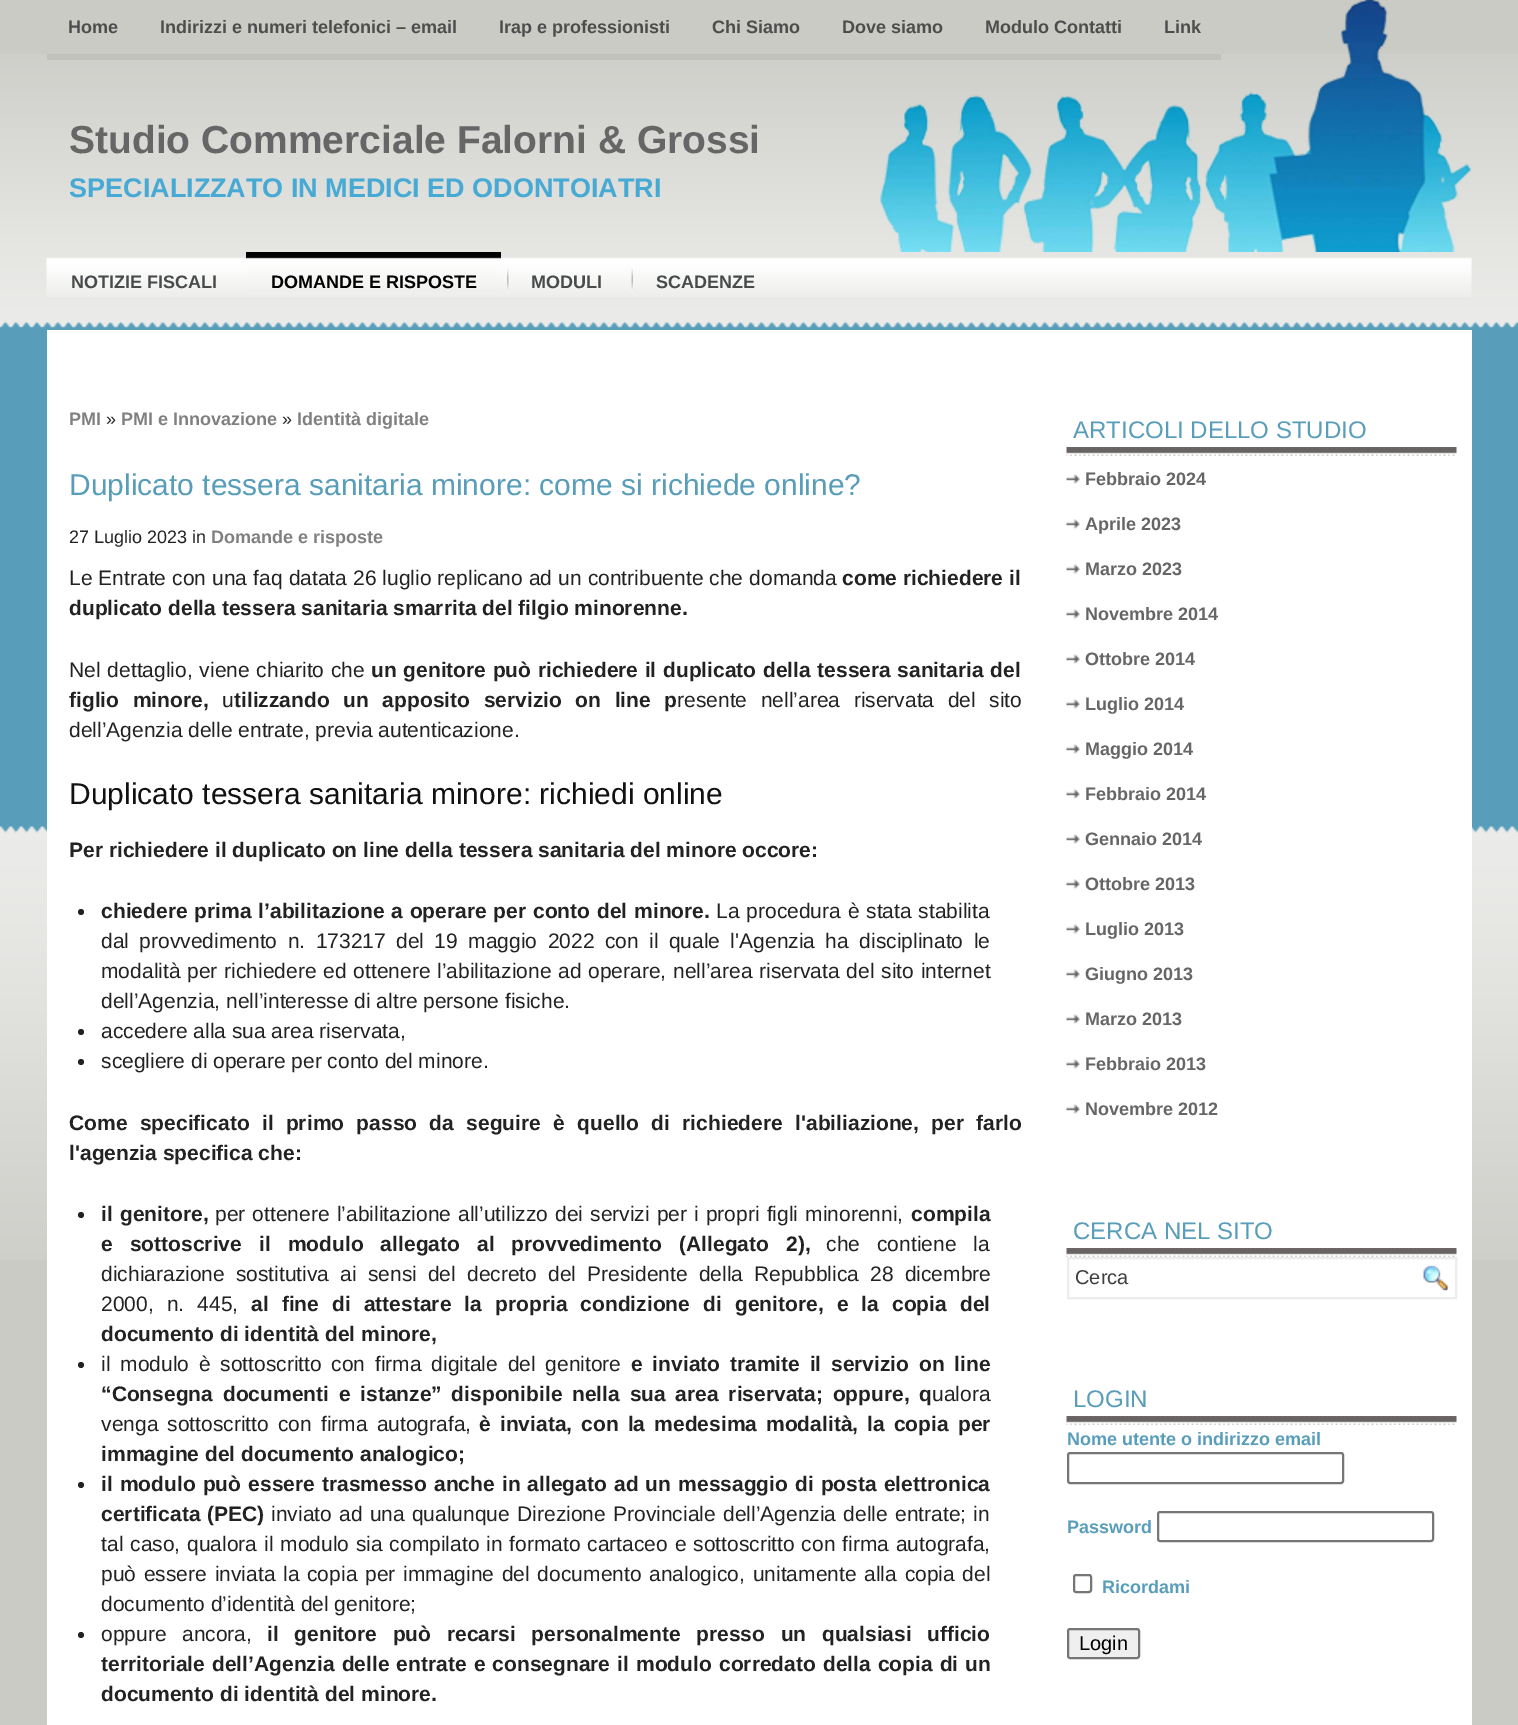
%!PS-Adobe-3.0
%%BoundingBox: 0 0 1518 1725
%%LanguageLevel: 3
%%Pages: 1
%%EndComments
%%BeginProlog
/m { moveto } bind def
/f { fill } bind def
/S { stroke } bind def
/q { gsave } bind def
/Q { grestore } bind def
/w { setlinewidth } bind def
/fn { [ exch dup neg 0 0 3 -1 roll 0 0 ] selectfont } def
/tx { moveto show } def
/bx { rectfill } def
/ci { newpath 0 360 arc closepath } def
/rr { 5 dict begin { /r /h /w /y /x } { exch def } forall
  x r add y moveto x w add y 2 copy h add r arct x w add y h add x 1 index r arct
  x y h add x y r arct x y 2 copy exch w add exch r arct closepath end } def
/im { 5 dict begin { /h /w /y /x /name } { exch def } forall
  gsave x y translate w h scale
  w h 8 [w 0 0 h 0 0] name (r) file false 3 colorimage grestore end } def
%%EndProlog
%%BeginSetup
<< /PageSize [1518 1725] >> setpagedevice
%%EndSetup
%%Page: 1 1
0 1725 translate 1 -1 scale
4 setmiterlimit
0.792 0.796 0.773 setrgbcolor
0 0 1518 1725 bx
(image0.raw) 0 54 1518 1206 im
(image1.raw) 880 0 592 252 im
0.757 0.761 0.733 setrgbcolor
47 54 1174 6 bx
/LiberationSans-Bold 18 fn
0.306 0.302 0.302 setrgbcolor
(Home) 68 33 tx
(Indirizzi e numeri telefonici – email) 160 33 tx
(Irap e professionisti) 499 33 tx
(Chi Siamo) 712 33 tx
(Dove siamo) 842 33 tx
(Modulo Contatti) 985 33 tx
(Link) 1164 33 tx
/LiberationSans-Bold 39 fn
0.4 setgray
(Studio Commerciale Falorni & Grossi) 69 153 tx
/LiberationSans-Bold 27 fn
0.278 0.667 0.831 setrgbcolor
(SPECIALIZZATO IN MEDICI ED ODONTOIATRI) 69 197 tx
(image2.raw) 46 257 1426 40 im
/LiberationSans-Bold 18 fn
0.282 0.294 0.298 setrgbcolor
(NOTIZIE FISCALI) 71 288 tx
(image3.raw) 246 252 255 41 im
0 setgray
(DOMANDE E RISPOSTE) 271 288 tx
(image4.raw) 507 268 2 25 im
0.282 0.294 0.298 setrgbcolor
(MODULI) 531 288 tx
(image5.raw) 631 268 2 25 im
(SCADENZE) 656 288 tx
1 setgray
47 330 1425 1395 bx
0.502 setgray
(PMI) 69 425 tx
/LiberationSans-Regular 18 fn
0.133 setgray
(») 106 425 tx
/LiberationSans-Bold 18 fn
0.502 setgray
(PMI e Innovazione) 121 425 tx
/LiberationSans-Regular 18 fn
0.133 setgray
(») 282 425 tx
/LiberationSans-Bold 18 fn
0.502 setgray
(Identità digitale) 297 425 tx
/LiberationSans-Regular 30 fn
0.345 0.616 0.729 setrgbcolor
(Duplicato tessera sanitaria minore: come si richiede online?) 69 495 tx
/LiberationSans-Regular 18 fn
0.133 setgray
(27 Luglio 2023 in) 69 543 tx
/LiberationSans-Bold 18 fn
0.502 setgray
(Domande e risposte) 211 543 tx
/LiberationSans-Regular 21 fn
0.133 setgray
69 585 m 0.25 0 32 (Le Entrate con una faq datata 26 luglio replicano ad un contribuente che domanda) widthshow
/LiberationSans-Bold 21 fn
(come richiedere il) 842 585 tx
(duplicato della tessera sanitaria smarrita del filgio minorenne.) 69 615 tx
/LiberationSans-Regular 21 fn
69 677 m 1 0 32 (Nel dettaglio, viene chiarito che) widthshow
/LiberationSans-Bold 21 fn
371 677 m 0.75 0 32 (un genitore può richiedere il duplicato della tessera sanitaria del) widthshow
69 707 m 7.75 0 32 (figlio minore,) widthshow
/LiberationSans-Regular 21 fn
(u) 222 707 tx
/LiberationSans-Bold 21 fn
234 707 m 7.75 0 32 (tilizzando un apposito servizio on line p) widthshow
/LiberationSans-Regular 21 fn
677 707 m 7.75 0 32 (resente nell’area riservata del sito) widthshow
(dell’Agenzia delle entrate, previa autenticazione.) 69 737 tx
/LiberationSans-Regular 30 fn
0.067 setgray
(Duplicato tessera sanitaria minore: richiedi online) 69 804 tx
/LiberationSans-Bold 21 fn
0.133 setgray
(Per richiedere il duplicato on line della tessera sanitaria del minore occore:) 69 857 tx
81 912 3 ci f
101 918 m 1 0 32 (chiedere prima l’abilitazione a operare per conto del minore.) widthshow
/LiberationSans-Regular 21 fn
716 918 m 1 0 32 (La procedura è stata stabilita) widthshow
101 948 m 4.6 0 32 (dal provvedimento n. 173217 del 19 maggio 2022 con il quale l'Agenzia ha disciplinato le) widthshow
101 978 m 0.9 0 32 (modalità per richiedere ed ottenere l’abilitazione ad operare, nell’area riservata del sito internet) widthshow
(dell’Agenzia, nell’interesse di altre persone fisiche.) 101 1008 tx
81 1032 3 ci f
(accedere alla sua area riservata,) 101 1038 tx
81 1062 3 ci f
(scegliere di operare per conto del minore.) 101 1068 tx
/LiberationSans-Bold 21 fn
69 1130 m 6.5 0 32 (Come specificato il primo passo da seguire è quello di richiedere l'abiliazione, per farlo) widthshow
(l'agenzia specifica che:) 69 1160 tx
81 1215 3 ci f
101 1221 m 1.25 0 32 (il genitore,) widthshow
/LiberationSans-Regular 21 fn
215 1221 m 1.25 0 32 (per ottenere l’abilitazione all’utilizzo dei servizi per i propri figli minorenni,) widthshow
/LiberationSans-Bold 21 fn
(compila) 911 1221 tx
101 1251 m 11.25 0 32 (e sottoscrive il modulo allegato al provvedimento \(Allegato 2\),) widthshow
/LiberationSans-Regular 21 fn
826 1251 m 11.25 0 32 (che contiene la) widthshow
101 1281 m 5.25 0 32 (dichiarazione sostitutiva ai sensi del decreto del Presidente della Repubblica 28 dicembre) widthshow
101 1311 m 7.25 0 32 (2000, n. 445,) widthshow
/LiberationSans-Bold 21 fn
251 1311 m 7.25 0 32 (al fine di attestare la propria condizione di genitore, e la copia del) widthshow
(documento di identità del minore,) 101 1341 tx
81 1365 3 ci f
/LiberationSans-Regular 21 fn
101 1371 m 3.9 0 32 (il modulo è sottoscritto con firma digitale del genitore) widthshow
/LiberationSans-Bold 21 fn
631 1371 m 3.9 0 32 (e inviato tramite il servizio on line) widthshow
101 1401 m 3.9 0 32 (“Consegna documenti e istanze” disponibile nella sua area riservata; oppure, q) widthshow
/LiberationSans-Regular 21 fn
(ualora) 932 1401 tx
101 1431 m 3.25 0 32 (venga sottoscritto con firma autografa,) widthshow
/LiberationSans-Bold 21 fn
479 1431 m 3.25 0 32 (è inviata, con la medesima modalità, la copia per) widthshow
(immagine del documento analogico;) 101 1461 tx
81 1485 3 ci f
101 1491 m 1.25 0 32 (il modulo può essere trasmesso anche in allegato ad un messaggio di posta elettronica) widthshow
101 1521 m 1 0 32 (certificata \(PEC\)) widthshow
/LiberationSans-Regular 21 fn
271 1521 m 1.4 0 32 (inviato ad una qualunque Direzione Provinciale dell’Agenzia delle entrate; in) widthshow
101 1551 m 1 0 32 (tal caso, qualora il modulo sia compilato in formato cartaceo e sottoscritto con firma autografa,) widthshow
101 1581 m 1.9 0 32 (può essere inviata la copia per immagine del documento analogico, unitamente alla copia del) widthshow
(documento d’identità del genitore;) 101 1611 tx
81 1635 3 ci f
101 1641 m 9.75 0 32 (oppure ancora,) widthshow
/LiberationSans-Bold 21 fn
267 1641 m 9.75 0 32 (il genitore può recarsi personalmente presso un qualsiasi ufficio) widthshow
101 1671 m 1.25 0 32 (territoriale dell’Agenzia delle entrate e consegnare il modulo corredato della copia di un) widthshow
(documento di identità del minore.) 101 1701 tx
(image6.raw) 1066 447 391 9 im
/LiberationSans-Regular 24 fn
0.345 0.616 0.729 setrgbcolor
(ARTICOLI DELLO STUDIO) 1073 438 tx
(image7.raw) 1066 474 14 11 im
/LiberationSans-Bold 18 fn
0.4 setgray
(Febbraio 2024) 1085 485 tx
(image7.raw) 1066 519 14 11 im
(Aprile 2023) 1085 530 tx
(image7.raw) 1066 564 14 11 im
(Marzo 2023) 1085 575 tx
(image7.raw) 1066 609 14 11 im
(Novembre 2014) 1085 620 tx
(image7.raw) 1066 654 14 11 im
(Ottobre 2014) 1085 665 tx
(image7.raw) 1066 699 14 11 im
(Luglio 2014) 1085 710 tx
(image7.raw) 1066 744 14 11 im
(Maggio 2014) 1085 755 tx
(image7.raw) 1066 789 14 11 im
(Febbraio 2014) 1085 800 tx
(image7.raw) 1066 834 14 11 im
(Gennaio 2014) 1085 845 tx
(image7.raw) 1066 879 14 11 im
(Ottobre 2013) 1085 890 tx
(image7.raw) 1066 924 14 11 im
(Luglio 2013) 1085 935 tx
(image7.raw) 1066 969 14 11 im
(Giugno 2013) 1085 980 tx
(image7.raw) 1066 1014 14 11 im
(Marzo 2013) 1085 1025 tx
(image7.raw) 1066 1059 14 11 im
(Febbraio 2013) 1085 1070 tx
(image7.raw) 1066 1104 14 11 im
(Novembre 2012) 1085 1115 tx
(image8.raw) 1066 1248 391 9 im
/LiberationSans-Regular 24 fn
0.345 0.616 0.729 setrgbcolor
(CERCA NEL SITO) 1073 1239 tx
0.929 0.925 0.925 setrgbcolor
2 w
1068 1258 388 40 rectstroke
/LiberationSans-Regular 20 fn
0.247 setgray
(Cerca) 1075 1284 tx
(image9.raw) 1423 1265 25 26 im
(image10.raw) 1066 1416 391 9 im
/LiberationSans-Regular 24 fn
0.345 0.616 0.729 setrgbcolor
(LOGIN) 1073 1407 tx
/LiberationSans-Bold 18 fn
(Nome utente o indirizzo email) 1067 1445 tx
0.463 setgray
1068 1453 275 30 2 rr S
0.345 0.616 0.729 setrgbcolor
(Password) 1067 1533 tx
0.463 setgray
1158 1512 275 29 2 rr S
1074 1575 17 17 2 rr S
0.345 0.616 0.729 setrgbcolor
(Ricordami) 1102 1593 tx
0.937 setgray
1068 1629 71 29 2 rr q f Q
0.463 setgray
S
/LiberationSans-Regular 20 fn
0 setgray
(Login) 1079 1650 tx
showpage
%%EOF
